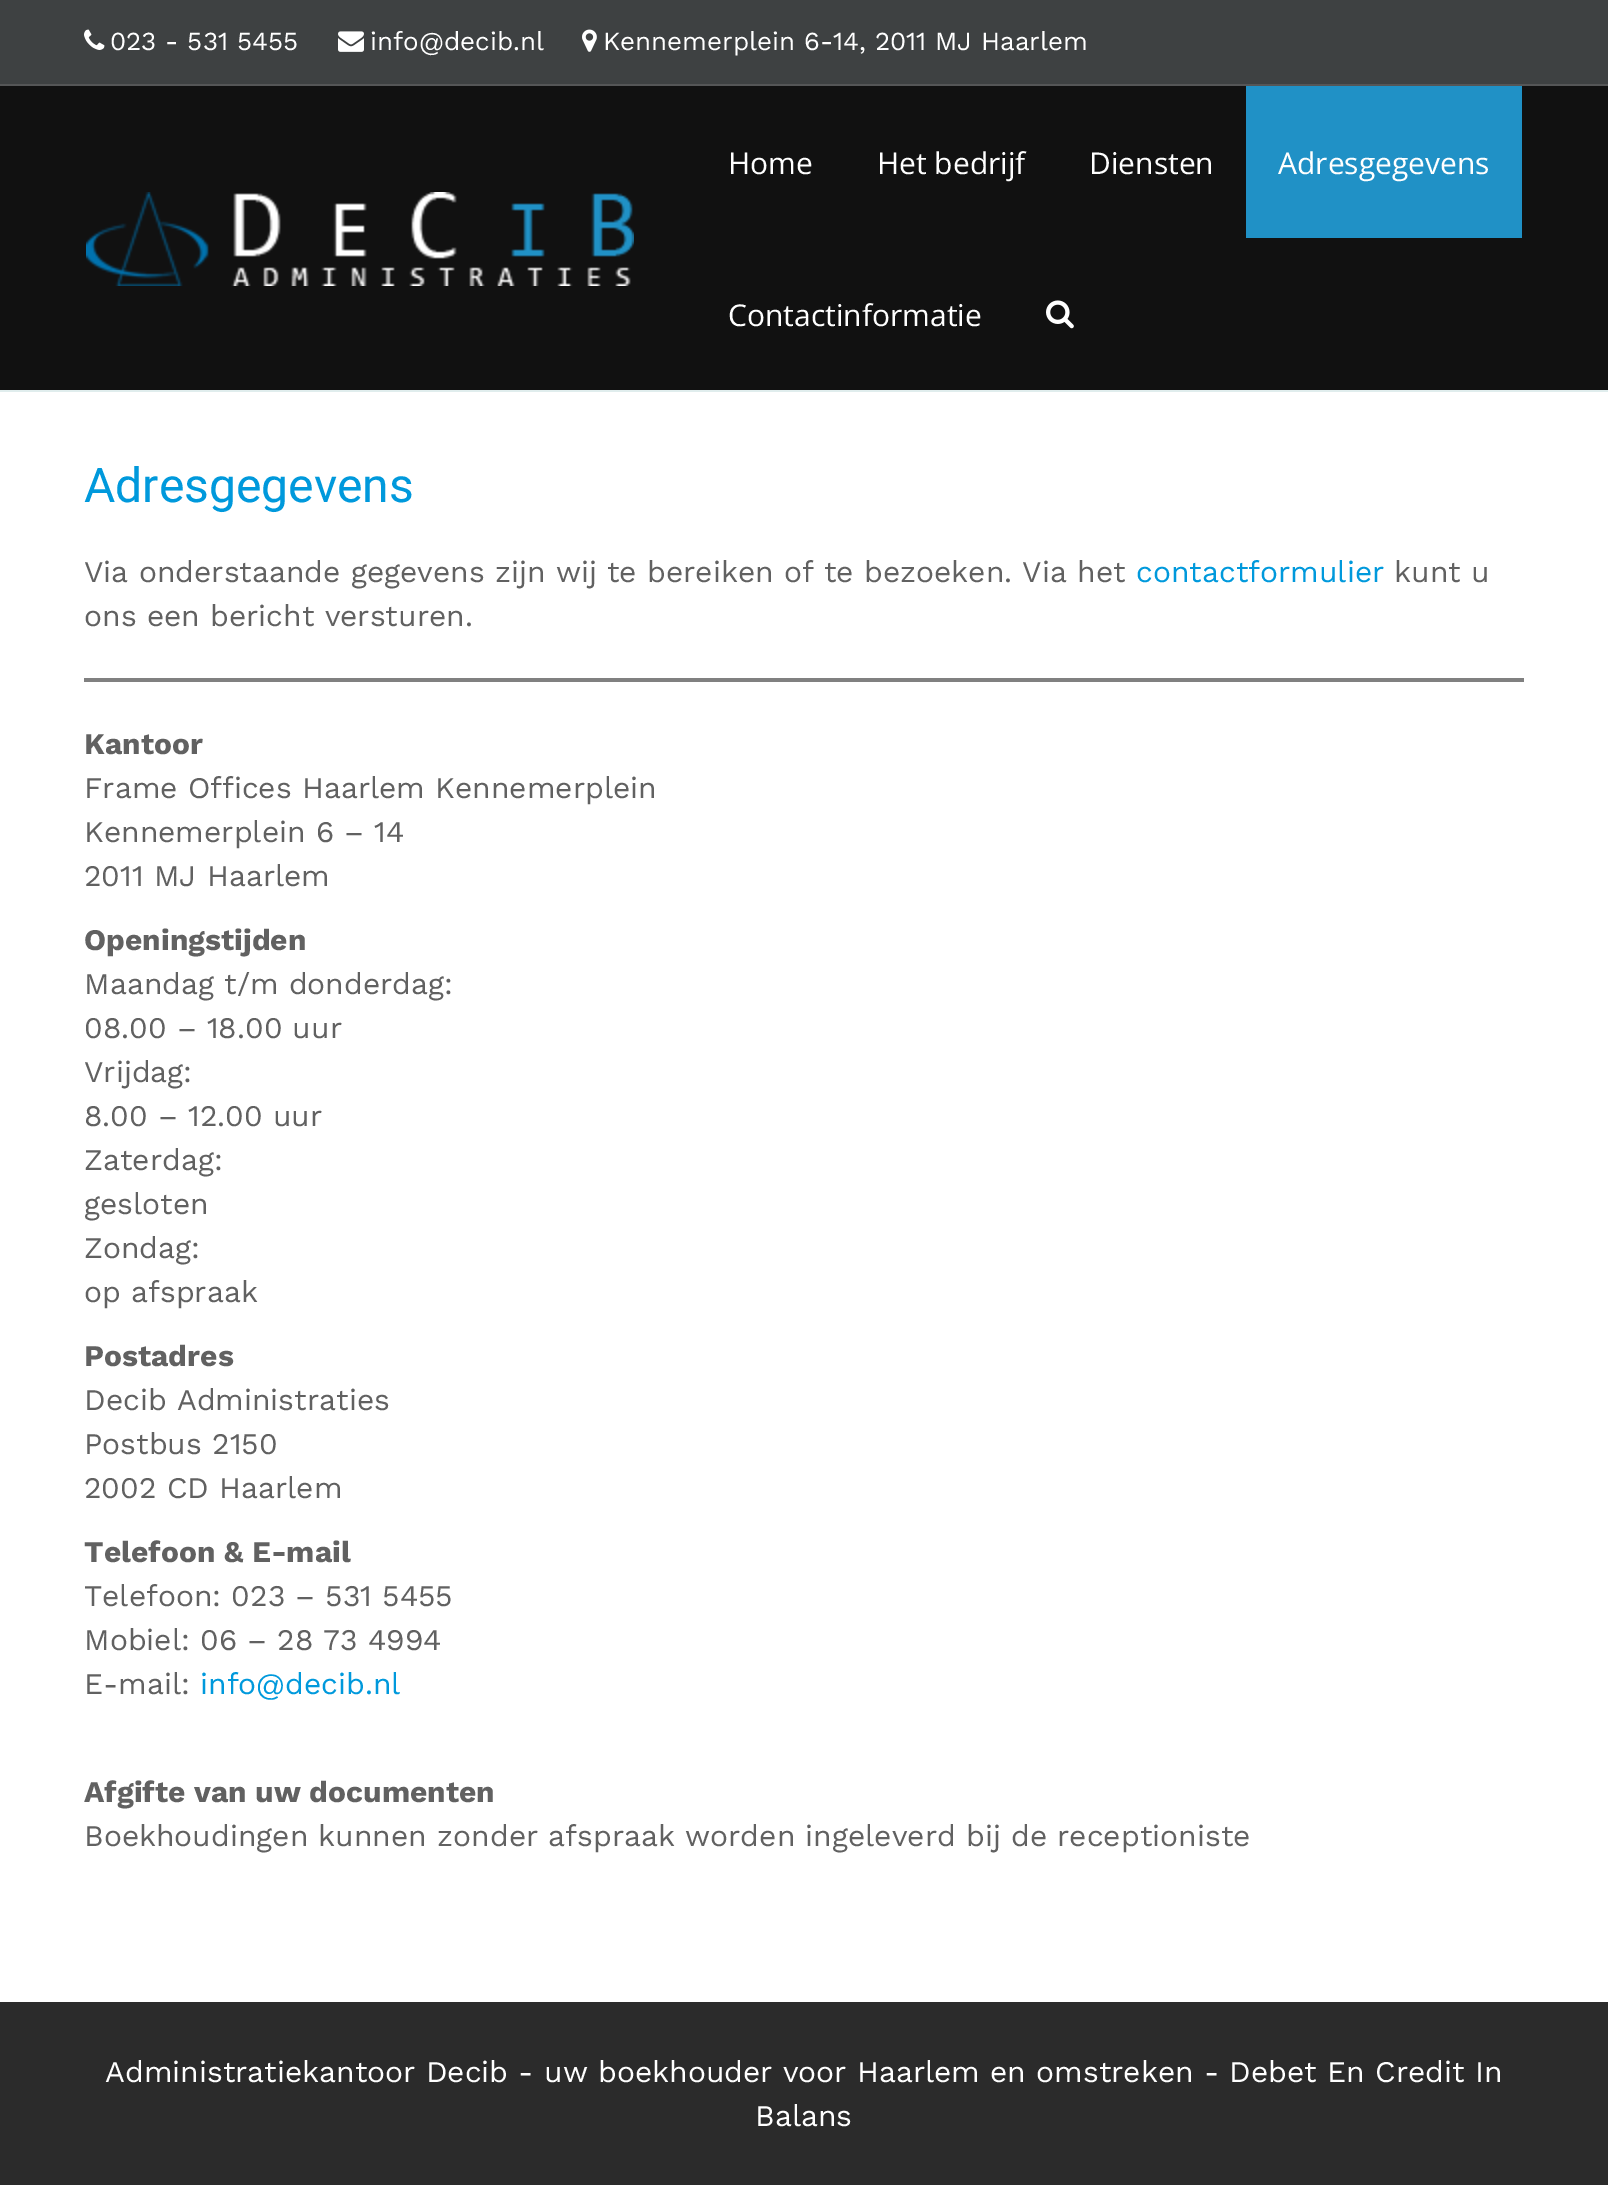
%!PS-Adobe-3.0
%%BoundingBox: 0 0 1608 2185
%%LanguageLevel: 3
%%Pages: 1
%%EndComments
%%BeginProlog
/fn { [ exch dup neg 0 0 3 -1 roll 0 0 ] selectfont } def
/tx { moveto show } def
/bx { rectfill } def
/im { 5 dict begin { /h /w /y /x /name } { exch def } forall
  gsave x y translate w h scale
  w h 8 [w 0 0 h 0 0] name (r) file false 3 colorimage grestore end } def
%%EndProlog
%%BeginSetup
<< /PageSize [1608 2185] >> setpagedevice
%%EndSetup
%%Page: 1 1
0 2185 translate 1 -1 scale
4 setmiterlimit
1 setgray
0 0 1608 2185 bx
0.243 0.255 0.259 setrgbcolor
0 0 1608 84 bx
0.333 0.337 0.341 setrgbcolor
0 84 1608 2 bx
(image0.raw) 84 29 21 21 im
/WorkSans-Regular 26 fn
1 setgray
(023 - 531 5455) 110 50 tx
(image1.raw) 338 31 26 21 im
(info@decib.nl) 370 50 tx
(image2.raw) 582 29 15 23 im
(Kennemerplein 6-14, 2011 MJ Haarlem) 603 50 tx
0.067 setgray
0 86 1608 304 bx
0.878 0.929 0.929 setrgbcolor
0 390 1608 2 bx
(image3.raw) 86 192 548 94 im
/OpenSans-Regular 30 fn
1 setgray
(Home) 728 174 tx
(Het bedrijf) 877 174 tx
(Diensten) 1089 174 tx
0.125 0.569 0.776 setrgbcolor
1246 86 276 152 bx
1 setgray
(Adresgegevens) 1278 174 tx
(Contactinformatie) 728 326 tx
(image4.raw) 1046 300 28 29 im
/Roboto-Regular 48 fn
0 0.6 0.863 setrgbcolor
(Adresgegevens) 84 502 tx
/WorkSans-Regular 30 fn
0.38 setgray
(Via onderstaande gegevens zijn wij te bereiken of te bezoeken. Via het) 84 582 tx
0 0.6 0.863 setrgbcolor
(contactformulier) 1136 582 tx
0.38 setgray
(kunt u) 1394 582 tx
(ons een bericht versturen.) 84 626 tx
0.502 setgray
84 678 1440 4 bx
/WorkSans-Bold 30 fn
0.38 setgray
(Kantoor) 84 754 tx
/WorkSans-Regular 30 fn
(Frame Offices Haarlem Kennemerplein) 84 798 tx
(Kennemerplein 6 – 14) 84 842 tx
(2011 MJ Haarlem) 84 886 tx
/WorkSans-Bold 30 fn
(Openingstijden) 84 950 tx
/WorkSans-Regular 30 fn
(Maandag t/m donderdag:) 84 994 tx
(08.00 – 18.00 uur) 84 1038 tx
(Vrijdag:) 84 1082 tx
(8.00 – 12.00 uur) 84 1126 tx
(Zaterdag:) 84 1170 tx
(gesloten) 84 1214 tx
(Zondag:) 84 1258 tx
(op afspraak) 84 1302 tx
/WorkSans-Bold 30 fn
(Postadres) 84 1366 tx
/WorkSans-Regular 30 fn
(Decib Administraties) 84 1410 tx
(Postbus 2150) 84 1454 tx
(2002 CD Haarlem) 84 1498 tx
/WorkSans-Bold 30 fn
(Telefoon & E-mail) 84 1562 tx
/WorkSans-Regular 30 fn
(Telefoon: 023 – 531 5455) 84 1606 tx
(Mobiel: 06 – 28 73 4994) 84 1650 tx
(E-mail:) 84 1694 tx
0 0.6 0.863 setrgbcolor
(info@decib.nl) 200 1694 tx
/WorkSans-Bold 30 fn
0.38 setgray
(Afgifte van uw documenten) 84 1802 tx
/WorkSans-Regular 30 fn
(Boekhoudingen kunnen zonder afspraak worden ingeleverd bij de receptioniste) 84 1846 tx
0.169 setgray
0 2002 1608 183 bx
1 setgray
(Administratiekantoor Decib - uw boekhouder voor Haarlem en omstreken - Debet En Credit In) 105 2082 tx
(Balans) 755 2126 tx
showpage
%%EOF
